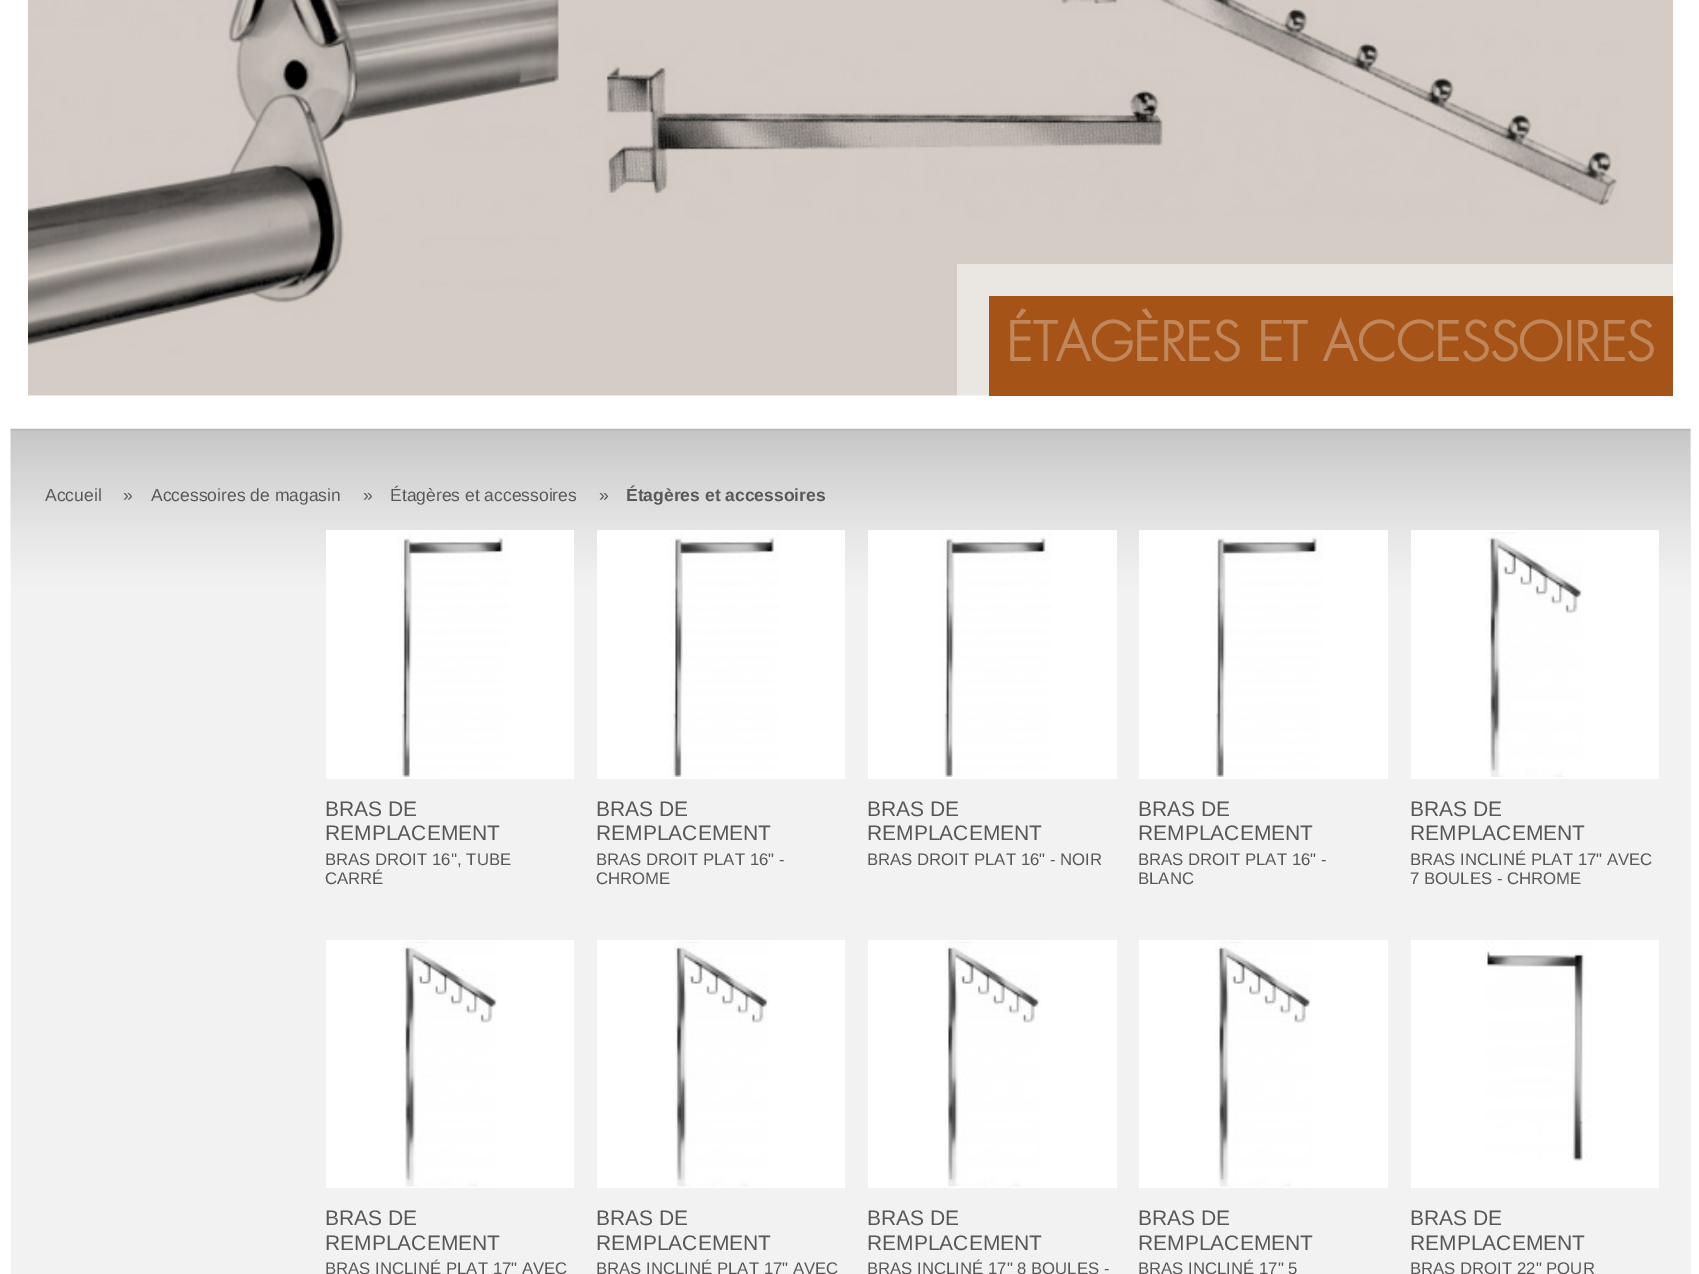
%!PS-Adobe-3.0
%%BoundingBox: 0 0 1699 1274
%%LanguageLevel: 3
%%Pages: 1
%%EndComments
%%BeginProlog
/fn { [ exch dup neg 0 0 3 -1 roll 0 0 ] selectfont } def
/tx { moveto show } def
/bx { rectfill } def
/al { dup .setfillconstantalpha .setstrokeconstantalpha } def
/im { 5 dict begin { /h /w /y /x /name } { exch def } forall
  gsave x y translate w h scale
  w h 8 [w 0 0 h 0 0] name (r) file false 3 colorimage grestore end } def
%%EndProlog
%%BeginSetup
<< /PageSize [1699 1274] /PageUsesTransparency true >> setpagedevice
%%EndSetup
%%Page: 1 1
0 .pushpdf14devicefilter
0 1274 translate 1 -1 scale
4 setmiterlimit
1 setgray
0 0 1699 1274 bx
(image0.raw) 28 0 1645 396 im
0.5 al
957 264 716 132 bx
1 al
0.647 0.325 0.086 setrgbcolor
989 296 684 100 bx
/Futura-Bold 52.5 fn
0.753 0.529 0.361 setrgbcolor
(ÉTAGÈRES ET ACCESSOIRES) 1006 361 tx
0.949 0.949 0.953 setrgbcolor
11 429 1680 845 bx
(image1.raw) 10 428 1681 237 im
/LiberationSans-Regular 17.5 fn
0.345 0.345 0.353 setrgbcolor
(Accueil) 45 501 tx
(») 123 501 tx
(Accessoires de magasin) 151 501 tx
(») 363 501 tx
(Étagères et accessoires) 390 501 tx
(») 599 501 tx
/LiberationSans-Bold 17.5 fn
(Étagères et accessoires) 626 501 tx
1 setgray
326 530 248 249 bx
(image2.raw) 398 532 111 245 im
/LiberationSans-Regular 21 fn
0.345 0.345 0.353 setrgbcolor
(BRAS DE) 325 816 tx
(REMPLACEMENT) 325 840 tx
/LiberationSans-Regular 16.75 fn
(BRAS DROIT 16'', TUBE) 325 865 tx
(CARRÉ) 325 884 tx
1 setgray
597 530 248 249 bx
(image3.raw) 669 532 111 245 im
/LiberationSans-Regular 21 fn
0.345 0.345 0.353 setrgbcolor
(BRAS DE) 596 816 tx
(REMPLACEMENT) 596 840 tx
/LiberationSans-Regular 16.75 fn
(BRAS DROIT PLAT 16" -) 596 865 tx
(CHROME) 596 884 tx
1 setgray
868 530 249 249 bx
(image4.raw) 940 532 112 245 im
/LiberationSans-Regular 21 fn
0.345 0.345 0.353 setrgbcolor
(BRAS DE) 867 816 tx
(REMPLACEMENT) 867 840 tx
/LiberationSans-Regular 16.75 fn
(BRAS DROIT PLAT 16" - NOIR) 867 865 tx
1 setgray
1139 530 249 249 bx
(image5.raw) 1211 534 112 243 im
/LiberationSans-Regular 21 fn
0.345 0.345 0.353 setrgbcolor
(BRAS DE) 1138 816 tx
(REMPLACEMENT) 1138 840 tx
/LiberationSans-Regular 16.75 fn
(BRAS DROIT PLAT 16" -) 1138 865 tx
(BLANC) 1138 884 tx
1 setgray
1411 530 248 249 bx
(image6.raw) 1486 532 97 245 im
/LiberationSans-Regular 21 fn
0.345 0.345 0.353 setrgbcolor
(BRAS DE) 1410 816 tx
(REMPLACEMENT) 1410 840 tx
/LiberationSans-Regular 16.75 fn
(BRAS INCLINÉ PLAT 17" AVEC) 1410 865 tx
(7 BOULES - CHROME) 1410 884 tx
1 setgray
326 940 248 248 bx
(image7.raw) 401 941 97 246 im
/LiberationSans-Regular 21 fn
0.345 0.345 0.353 setrgbcolor
(BRAS DE) 325 1225 tx
(REMPLACEMENT) 325 1250 tx
/LiberationSans-Regular 16.75 fn
(BRAS INCLINÉ PLAT 17" AVEC) 325 1274 tx
1 setgray
597 940 248 248 bx
(image8.raw) 674 941 95 246 im
/LiberationSans-Regular 21 fn
0.345 0.345 0.353 setrgbcolor
(BRAS DE) 596 1225 tx
(REMPLACEMENT) 596 1250 tx
/LiberationSans-Regular 16.75 fn
(BRAS INCLINÉ PLAT 17" AVEC) 596 1274 tx
1 setgray
868 940 249 248 bx
(image9.raw) 945 941 96 246 im
/LiberationSans-Regular 21 fn
0.345 0.345 0.353 setrgbcolor
(BRAS DE) 867 1225 tx
(REMPLACEMENT) 867 1250 tx
/LiberationSans-Regular 16.75 fn
(BRAS INCLINÉ 17" 8 BOULES -) 867 1274 tx
1 setgray
1139 940 249 248 bx
(image10.raw) 1215 941 97 246 im
/LiberationSans-Regular 21 fn
0.345 0.345 0.353 setrgbcolor
(BRAS DE) 1138 1225 tx
(REMPLACEMENT) 1138 1250 tx
/LiberationSans-Regular 16.75 fn
(BRAS INCLINÉ 17" 5) 1138 1274 tx
1 setgray
1411 940 248 248 bx
(image11.raw) 1484 941 108 222 im
/LiberationSans-Regular 21 fn
0.345 0.345 0.353 setrgbcolor
(BRAS DE) 1410 1225 tx
(REMPLACEMENT) 1410 1250 tx
/LiberationSans-Regular 16.75 fn
(BRAS DROIT 22" POUR) 1410 1274 tx
.poppdf14devicefilter showpage
%%EOF
